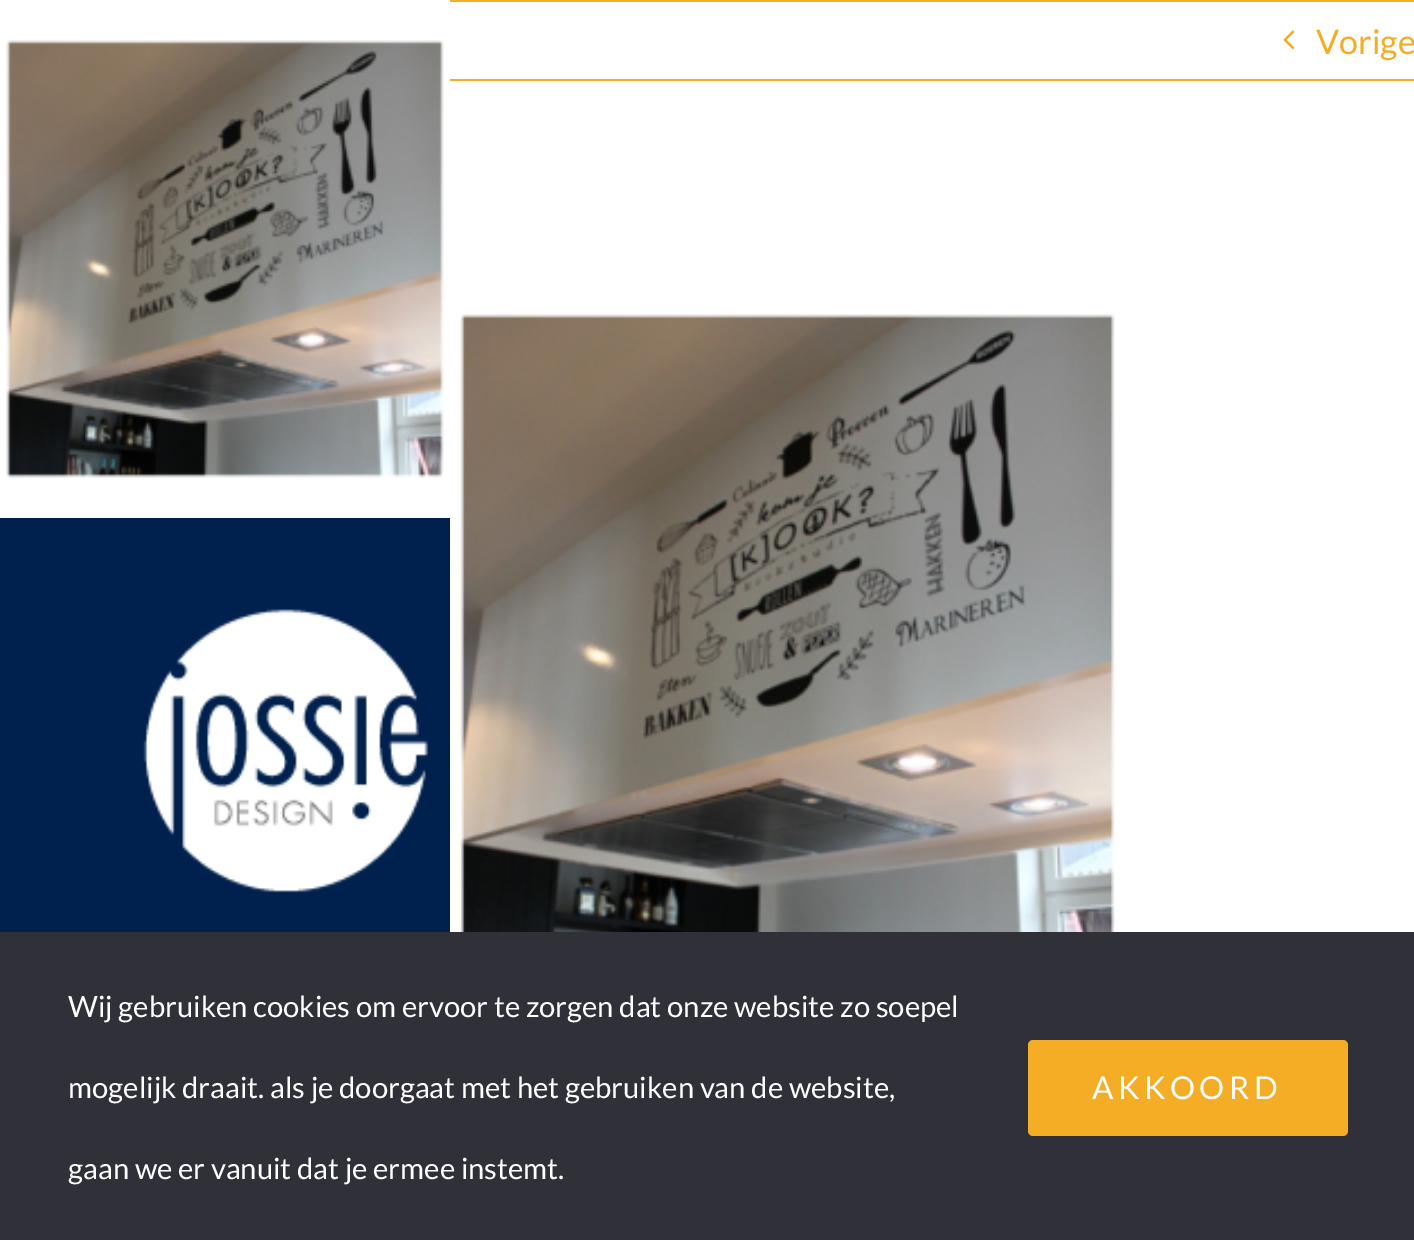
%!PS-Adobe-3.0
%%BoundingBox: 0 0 1414 1240
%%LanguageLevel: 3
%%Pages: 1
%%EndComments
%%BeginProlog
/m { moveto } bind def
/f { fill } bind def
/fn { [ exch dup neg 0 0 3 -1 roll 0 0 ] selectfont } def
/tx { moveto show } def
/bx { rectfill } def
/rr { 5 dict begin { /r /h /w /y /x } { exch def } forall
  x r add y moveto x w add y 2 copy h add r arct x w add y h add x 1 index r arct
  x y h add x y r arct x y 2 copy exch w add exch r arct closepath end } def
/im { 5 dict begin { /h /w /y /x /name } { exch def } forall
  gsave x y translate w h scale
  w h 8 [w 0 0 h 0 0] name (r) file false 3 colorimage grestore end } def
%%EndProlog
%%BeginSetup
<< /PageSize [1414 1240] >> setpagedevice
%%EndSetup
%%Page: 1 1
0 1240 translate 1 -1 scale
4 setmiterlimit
1 setgray
0 0 1414 1240 bx
(image0.raw) 6 40 438 438 im
0 0.129 0.302 setrgbcolor
0 518 450 414 bx
(image1.raw) 143 609 286 284 im
0.957 0.678 0.141 setrgbcolor
450 0 964 2 bx
450 79 964 2 bx
(image2.raw) 1283 30 12 20 im
/Lato-Regular 34 fn
(Vorige) 1316 54 tx
(image3.raw) 460 314 655 618 im
0.188 0.188 0.22 setrgbcolor
0 932 1414 308 bx
/Lato-Regular 29.25 fn
1 setgray
(Wij gebruiken cookies om ervoor te zorgen dat onze website zo soepel) 68 1017 tx
(mogelijk draait. als je doorgaat met het gebruiken van de website,) 68 1098 tx
(gaan we er vanuit dat je ermee instemt.) 68 1179 tx
0.957 0.678 0.141 setrgbcolor
1028 1040 320 96 5 rr f
/Lato-Regular 31.5 fn
1 setgray
1092 1099 m 4.5 0 (AKKOORD) ashow
showpage
%%EOF
